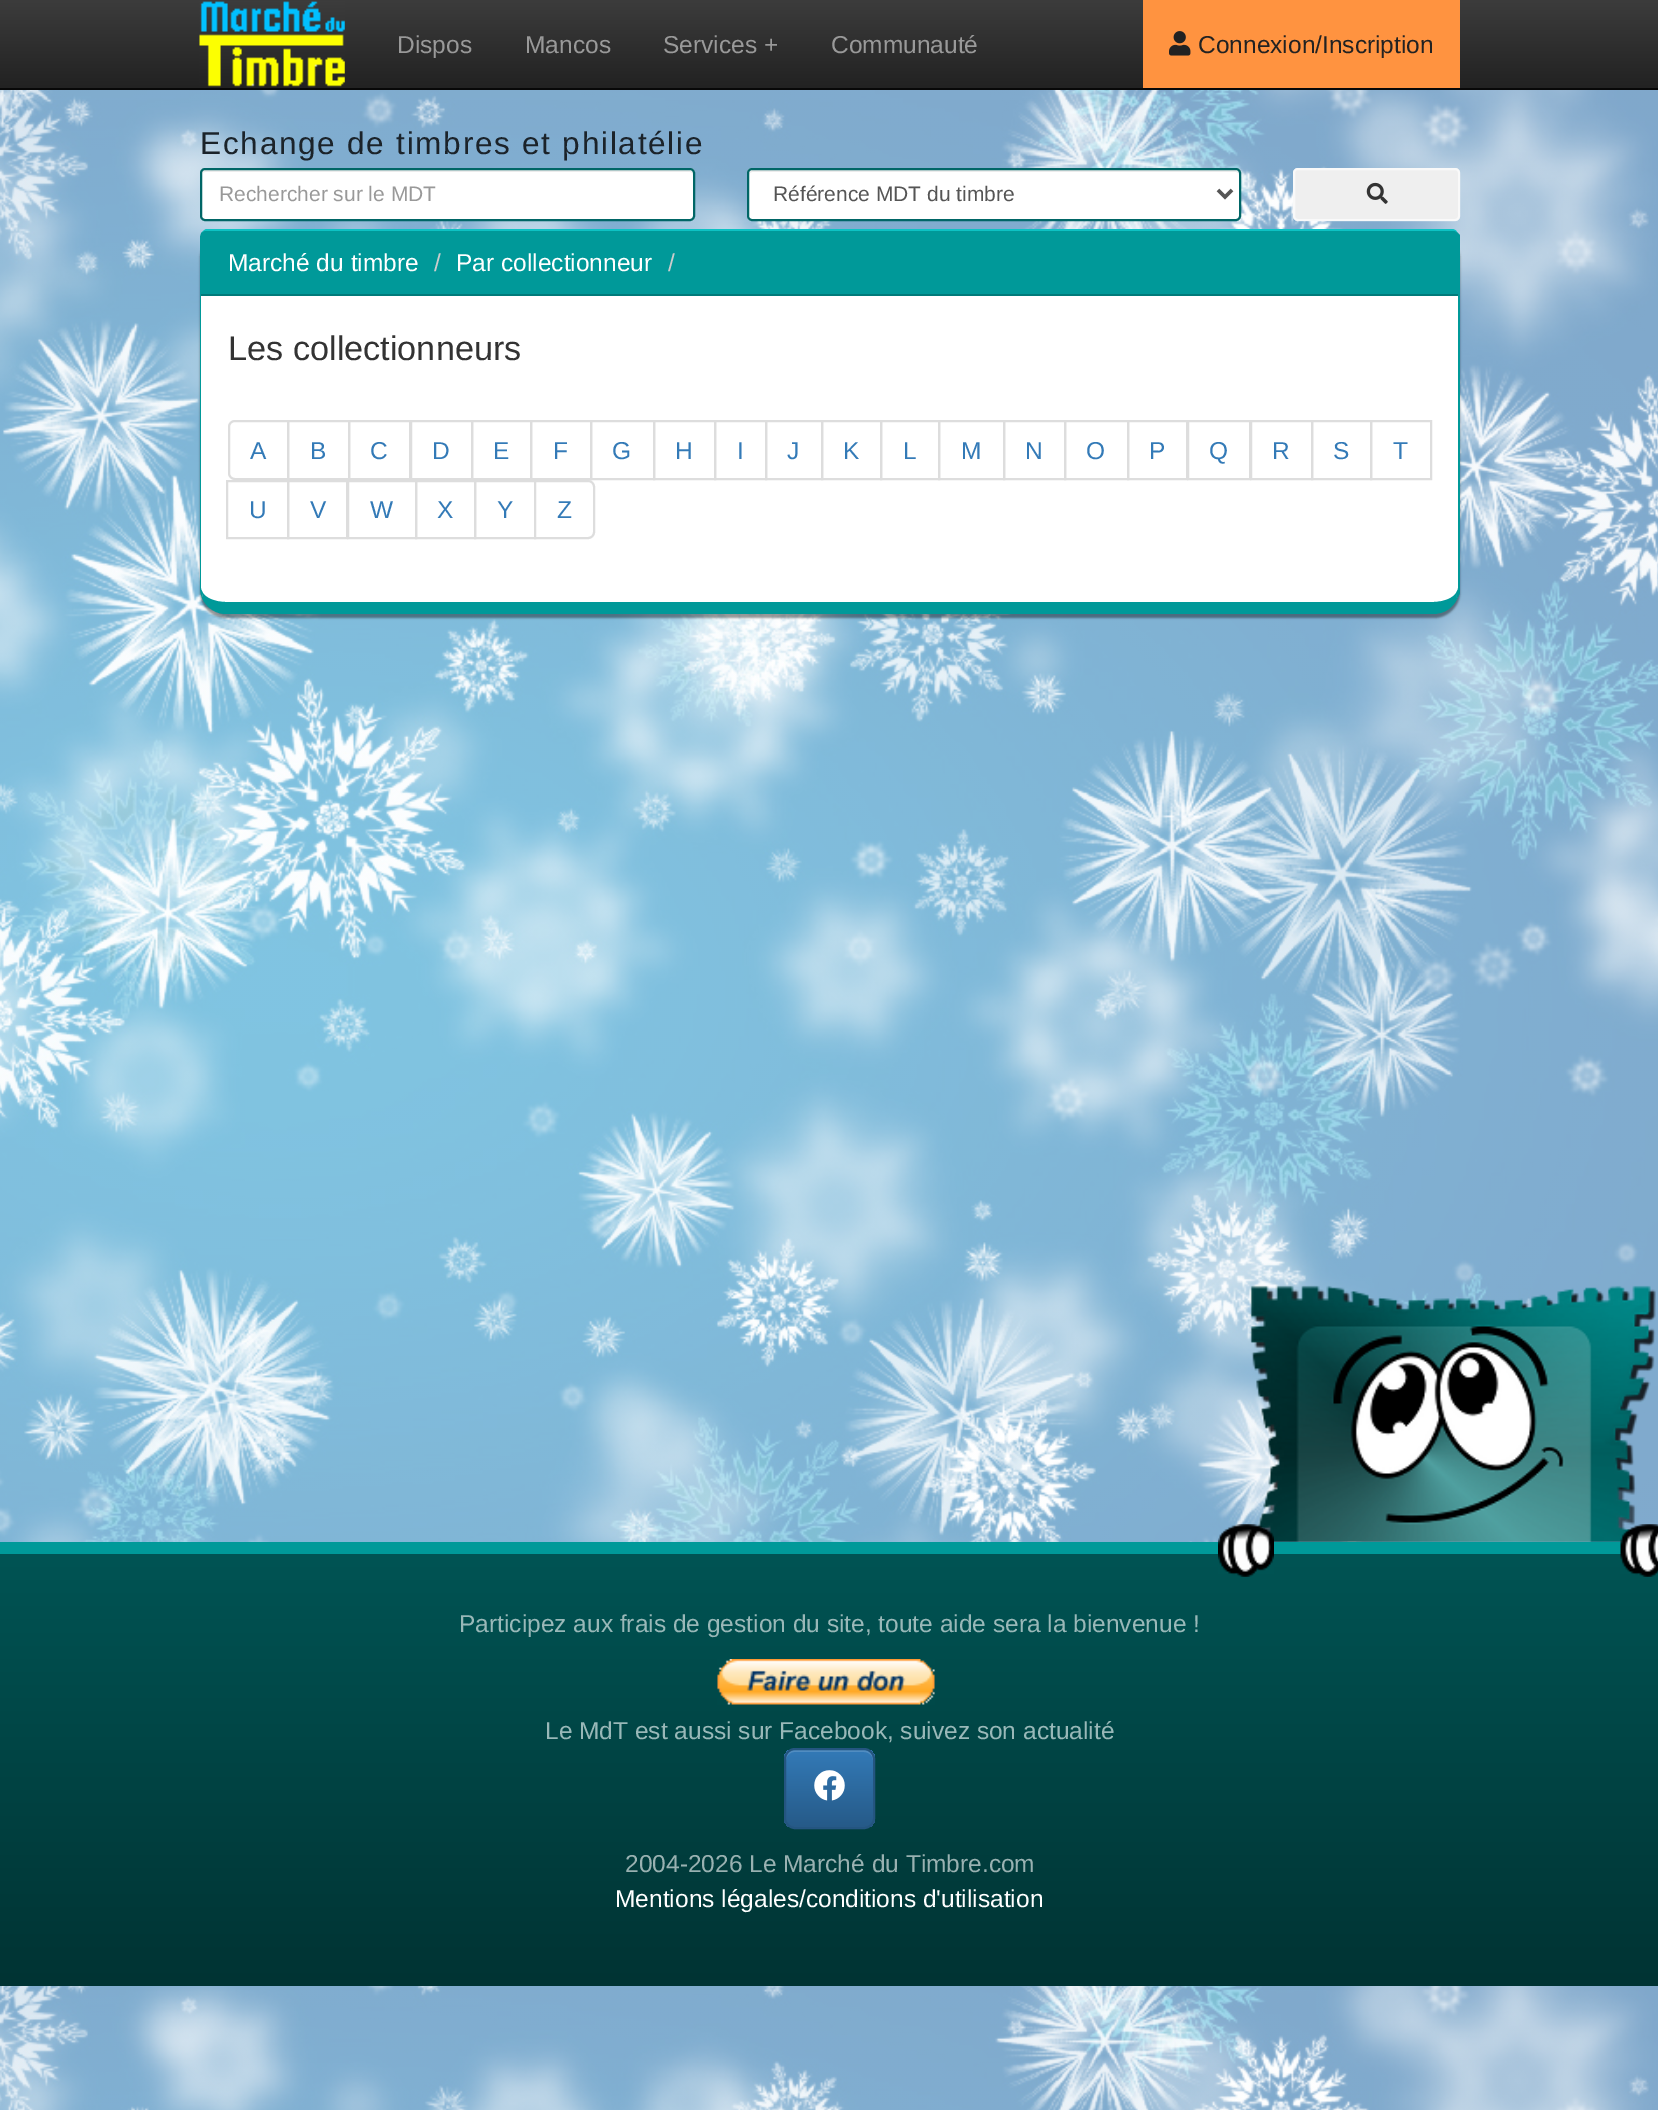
%!PS-Adobe-3.0
%%BoundingBox: 0 0 1658 2110
%%LanguageLevel: 3
%%Pages: 1
%%EndComments
%%BeginProlog
/m { moveto } bind def
/l { lineto } bind def
/c { curveto } bind def
/h { closepath } bind def
/f { fill } bind def
/S { stroke } bind def
/q { gsave } bind def
/Q { grestore } bind def
/w { setlinewidth } bind def
/fn { [ exch dup neg 0 0 3 -1 roll 0 0 ] selectfont } def
/tx { moveto show } def
/bx { rectfill } def
/al { dup .setfillconstantalpha .setstrokeconstantalpha } def
/rr { 5 dict begin { /r /h /w /y /x } { exch def } forall
  x r add y moveto x w add y 2 copy h add r arct x w add y h add x 1 index r arct
  x y h add x y r arct x y 2 copy exch w add exch r arct closepath end } def
/sh { 12 dict begin { /a /b /q /h /w /y /x } { exch def } forall gsave /was 0 def
  9 -2 -9 { dup b mul 4 div /e exch def 1 sub .425 mul 2.718 exch exp 1 add a .99 .min exch div /now exch def
    1 1 now sub 1 was sub div sub al /was now def
    w h .min e 2 mul add 0 gt { x e sub y e sub w e 2 mul add h e 2 mul add
      q e add b .6 mul add w h .min 2 div e add .min 0 .max rr fill } if } for grestore end } def
/im { 5 dict begin { /h /w /y /x /name } { exch def } forall
  gsave x y translate w h scale
  w h 8 [w 0 0 h 0 0] name (r) file false 3 colorimage grestore end } def
%%EndProlog
%%BeginSetup
<< /PageSize [1658 2110] /PageUsesTransparency true >> setpagedevice
%%EndSetup
%%Page: 1 1
0 .pushpdf14devicefilter
0 2110 translate 1 -1 scale
4 setmiterlimit
1 setgray
0 0 1658 2110 bx
(image0.raw) 0 90 1658 2020 im
q 0 0 m 1658 0 l 1658 88 l 0 88 l h clip newpath
<< /ShadingType 2 /ColorSpace /DeviceRGB /Coords [830 0 830 88] /Extend [true true] /Function << /FunctionType 2 /Domain [0 1] /C0 [0.235 0.235 0.235] /C1 [0.133 0.133 0.133] /N 1 >> >> shfill Q
0.031 setgray
0 88 1658 2 bx
(image1.raw) 199 1 146 86 im
/LiberationSans-Regular 24.5 fn
0.6 setgray
(Dispos) 397 53 tx
(Mancos) 525 53 tx
(Services +) 663 53 tx
(Communauté) 831 53 tx
1 0.576 0.251 setrgbcolor
1143 0 317 88 bx
(image2.raw) 1169 31 22 25 im
0.133 setgray
(Connexion/Inscription) 1198 53 tx
/LiberationSans-Regular 31.5 fn
0.106 0.137 0.165 setrgbcolor
200 154 m 1.75 0 (Echange de timbres et philatélie) ashow
1 setgray
200 168 495 53 5 rr f
0.925 setgray
205 172 m 690 172 l 691 172 693 173 693 175 c 693 172 692 170 689 170 c 205 170 l 202 170 201 172 201 175 c 201 173 203 172 205 172 c h f
0 0.4 0.4 setrgbcolor
2 w
201 169 493 51 4 rr S
/LiberationSans-Regular 21 fn
0.6 setgray
(Rechercher sur le MDT) 219 201 tx
1 setgray
747 168 494 53 5 rr f
0.925 setgray
752 172 m 1236 172 l 1237 172 1239 173 1239 175 c 1239 172 1238 170 1235 170 c 753 170 l 750 170 749 172 749 175 c 749 173 751 172 752 172 c h f
0 0.4 0.4 setrgbcolor
748 169 492 51 4 rr S
0.333 setgray
3.5 w
1218 190 m 1225 197 l 1232 190 l S
(Référence MDT du timbre) 773 201 tx
0.937 setgray
1293 168 167 53 5 rr f
0.6 al
1 setgray
2 w
1294 169 165 51 4 rr S
1 al
(image3.raw) 1366 182 22 22 im
q
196 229 m 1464 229 l 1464 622 l 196 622 l h 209 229 m 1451 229 l 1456 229 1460 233 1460 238 c 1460 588 l 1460 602.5 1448.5 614 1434 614 c 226 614 l 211.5 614 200 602.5 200 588 c 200 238 l 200 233 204 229 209 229 c h eoclip newpath
0 setgray
200 233 1260 385 26 1 0.4 sh
Q
208 231 m 1451 231 l 1455 231 1458 234 1458 238 c 1458 588 l 1458 596 1447 602 1433 602 c 226 602 l 212 602 201 596 201 588 c 201 238 l 201 234 204 231 208 231 c h f
0.055 0.761 0.769 setrgbcolor
208 231 m 206 231 204 232 203 233 c 202 232 l 203 231 204 230 206 229 c 1453 229 l 1455 230 1456 230 1457 232 c 1456 233 l 1455 232 1453 231 1451 231 c h f
0 0.6 0.6 setrgbcolor
1460 593 m 1457 599 l 1456 593 l 1457 591 1458 590 1458 588 c 1458 238 l 1458 236 1457 234 1456 233 c 1457 232 l 1460 235 l h f
1457 599 m 1453 608 1444 614 1433 614 c 226 614 l 215 614 206 607 202 598 c 203 593 l 206 598 215 602 226 602 c 1433 602 l 1444 602 1453 598 1456 593 c h f
202 598 m 201 595 200 591 200 588 c 200 238 l 200 236 201 233 202 232 c 203 233 l 202 234 201 236 201 238 c 201 588 l 201 590 202 591 203 593 c h f
206 231 m 1453 231 l 1456 231 1458 233 1458 236 c 1458 296 l 201 296 l 201 236 l 201 233 203 231 206 231 c h f
0 0.478 0.478 setrgbcolor
201 294 1257 2 bx
/LiberationSans-Regular 24.5 fn
1 setgray
(Marché du timbre) 228 271 tx
0.8 setgray
(/) 434 271 tx
1 setgray
(Par collectionneur) 456 271 tx
0.8 setgray
(/) 668 271 tx
/LiberationSans-Regular 34.25 fn
0.2 setgray
(Les collectionneurs) 228 360 tx
0.867 setgray
235 421 m 288 421 l 288 479 l 235 479 l 231.5 479 229 476.5 229 473 c 229 427 l 229 423.5 231.5 421 235 421 c h S
/LiberationSans-Regular 24.5 fn
0.2 0.478 0.718 setrgbcolor
(A) 250 459 tx
0.867 setgray
288 421 61 58 rectstroke
0.2 0.478 0.718 setrgbcolor
(B) 310 459 tx
0.867 setgray
349 421 61 58 rectstroke
0.2 0.478 0.718 setrgbcolor
(C) 370 459 tx
0.867 setgray
411 421 61 58 rectstroke
0.2 0.478 0.718 setrgbcolor
(D) 432 459 tx
0.867 setgray
472 421 59 58 rectstroke
0.2 0.478 0.718 setrgbcolor
(E) 493 459 tx
0.867 setgray
531 421 60 58 rectstroke
0.2 0.478 0.718 setrgbcolor
(F) 553 459 tx
0.867 setgray
591 421 63 58 rectstroke
0.2 0.478 0.718 setrgbcolor
(G) 612 459 tx
0.867 setgray
654 421 61 58 rectstroke
0.2 0.478 0.718 setrgbcolor
(H) 675 459 tx
0.867 setgray
715 421 51 58 rectstroke
0.2 0.478 0.718 setrgbcolor
(I) 737 459 tx
0.867 setgray
766 421 56 58 rectstroke
0.2 0.478 0.718 setrgbcolor
(J) 787 459 tx
0.867 setgray
822 421 59 58 rectstroke
0.2 0.478 0.718 setrgbcolor
(K) 843 459 tx
0.867 setgray
881 421 58 58 rectstroke
0.2 0.478 0.718 setrgbcolor
(L) 903 459 tx
0.867 setgray
939 421 65 58 rectstroke
0.2 0.478 0.718 setrgbcolor
(M) 961 459 tx
0.867 setgray
1004 421 61 58 rectstroke
0.2 0.478 0.718 setrgbcolor
(N) 1025 459 tx
0.867 setgray
1065 421 63 58 rectstroke
0.2 0.478 0.718 setrgbcolor
(O) 1086 459 tx
0.867 setgray
1128 421 59 58 rectstroke
0.2 0.478 0.718 setrgbcolor
(P) 1149 459 tx
0.867 setgray
1188 421 62 58 rectstroke
0.2 0.478 0.718 setrgbcolor
(Q) 1209 459 tx
0.867 setgray
1251 421 61 58 rectstroke
0.2 0.478 0.718 setrgbcolor
(R) 1272 459 tx
0.867 setgray
1312 421 59 58 rectstroke
0.2 0.478 0.718 setrgbcolor
(S) 1333 459 tx
0.867 setgray
1371 421 60 58 rectstroke
0.2 0.478 0.718 setrgbcolor
(T) 1393 459 tx
0.867 setgray
227 481 61 57 rectstroke
0.2 0.478 0.718 setrgbcolor
(U) 249 518 tx
0.867 setgray
288 481 59 57 rectstroke
0.2 0.478 0.718 setrgbcolor
(V) 310 518 tx
0.867 setgray
348 481 68 57 rectstroke
0.2 0.478 0.718 setrgbcolor
(W) 370 518 tx
0.867 setgray
416 481 59 57 rectstroke
0.2 0.478 0.718 setrgbcolor
(X) 437 518 tx
0.867 setgray
475 481 60 57 rectstroke
0.2 0.478 0.718 setrgbcolor
(Y) 497 518 tx
1 setgray
535 481 m 588 481 l 591.5 481 594 483.5 594 487 c 594 532 l 594 535.5 591.5 538 588 538 c 535 538 l h q f Q
0.867 setgray
S
0.2 0.478 0.718 setrgbcolor
(Z) 557 518 tx
(image4.raw) 1250 1285 406 257 im
q 0 1554 m 1658 1554 l 1658 1986 l 0 1986 l h clip newpath
<< /ShadingType 2 /ColorSpace /DeviceRGB /Coords [830 1554 830 1986] /Extend [true true] /Function << /FunctionType 2 /Domain [0 1] /C0 [0 0.329 0.329] /C1 [0 0.2 0.2] /N 1 >> >> shfill Q
0 0.6 0.6 setrgbcolor
0 1542 1658 12 bx
(image5.raw) 1218 1524 56 53 im
(image6.raw) 1620 1524 38 53 im
0.6 0.722 0.722 setrgbcolor
(Participez aux frais de gestion du site, toute aide sera la bienvenue !) 459 1632 tx
(image7.raw) 717 1659 218 46 im
(Le MdT est aussi sur Facebook, suivez son actualité) 545 1739 tx
q
784 1748 91 81 11 rr clip newpath
q 784 1750 m 875 1750 l 875 1827 l 784 1827 l h clip newpath
<< /ShadingType 2 /ColorSpace /DeviceRGB /Coords [830 1750 830 1827] /Extend [true true] /Function << /FunctionType 2 /Domain [0 1] /C0 [0.2 0.478 0.718] /C1 [0.149 0.353 0.533] /N 1 >> >> shfill Q
Q
0.15 al
1 setgray
794 1752 m 864 1752 l 869 1752 873 1756 873 1760 c 873 1748 861 1750 852 1750 c 806 1750 l 798 1750 786 1748 786 1760 c 786 1756 790 1752 794 1752 c h f
1 al
0.141 0.333 0.502 setrgbcolor
785 1749 89 79 10 rr S
(image8.raw) 814 1770 31 31 im
0.6 0.694 0.694 setrgbcolor
(2004-2026 Le Marché du Timbre.com) 625 1872 tx
1 setgray
(Mentions légales/conditions d'utilisation) 615 1907 tx
.poppdf14devicefilter showpage
%%EOF
